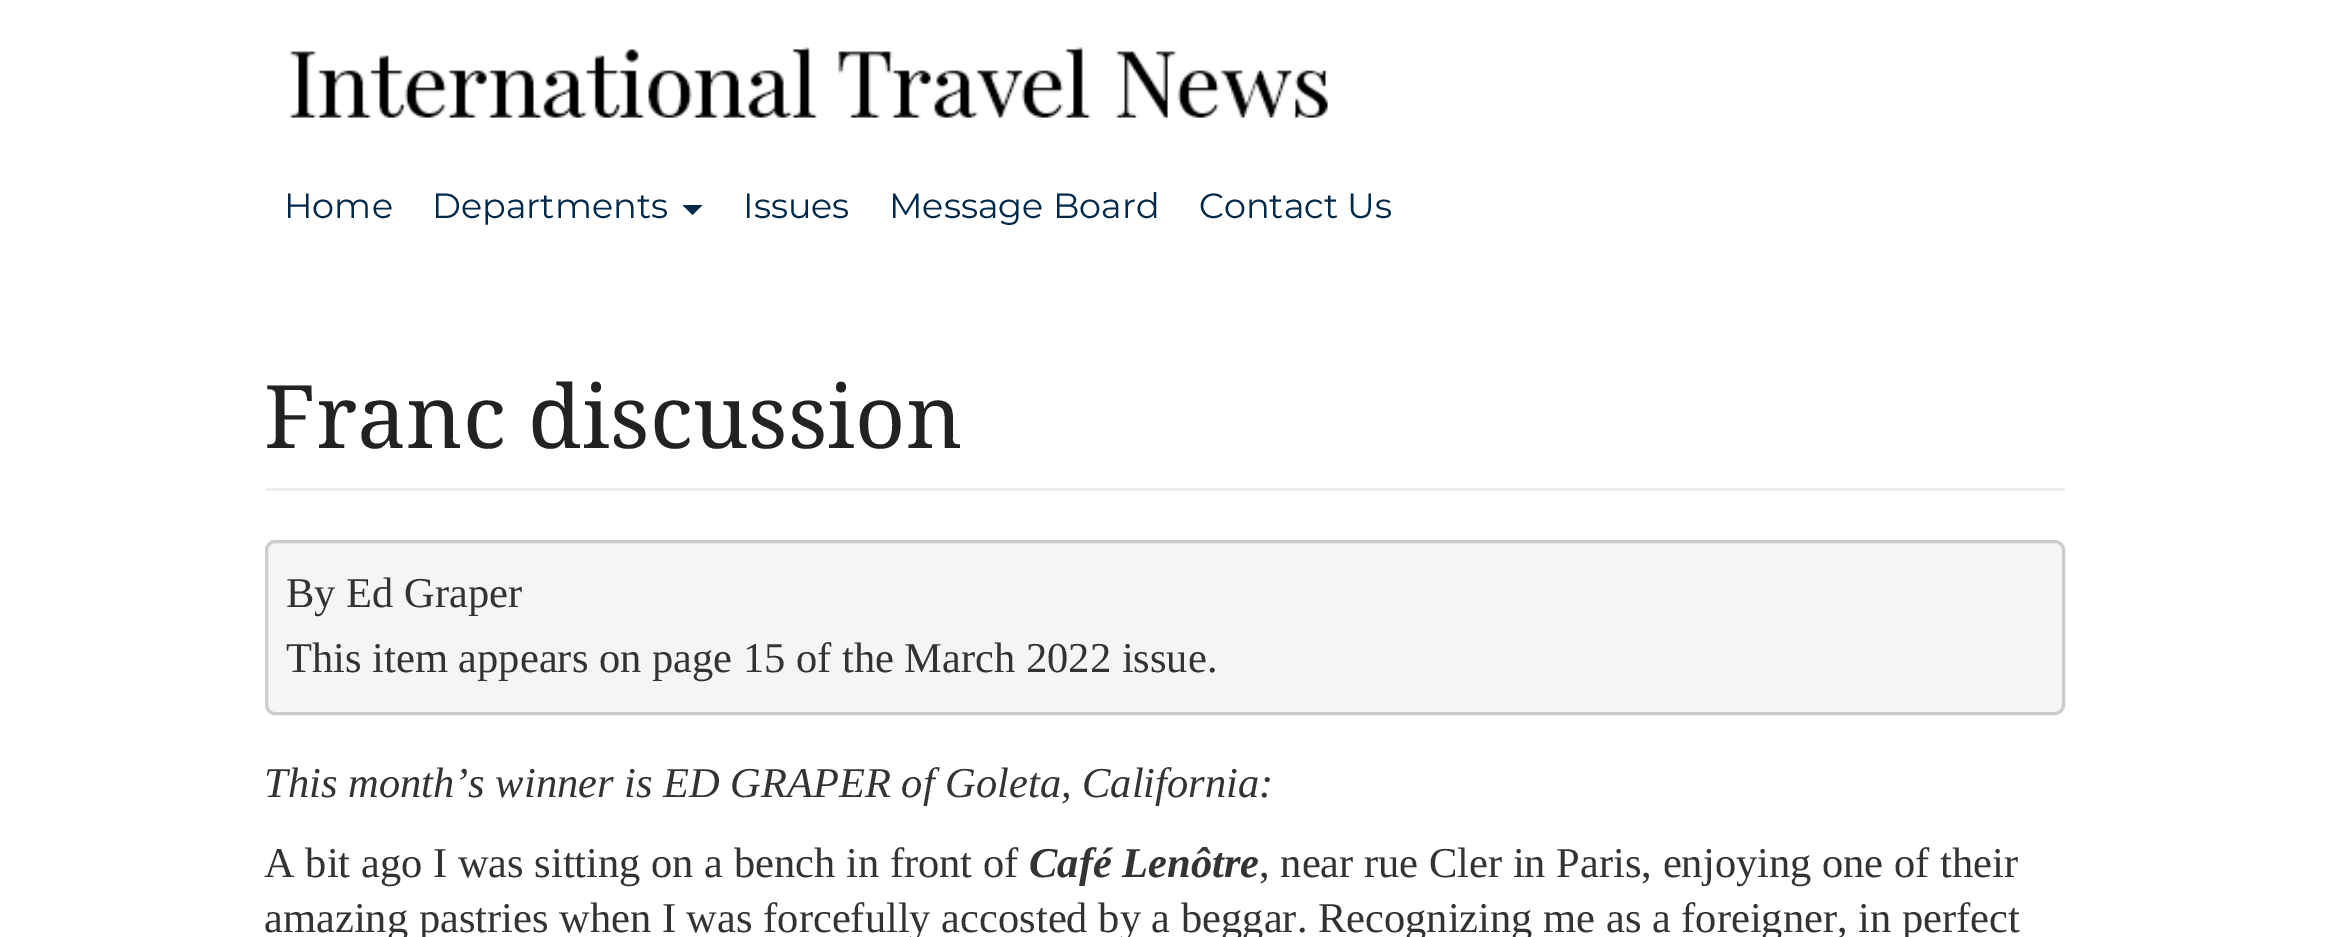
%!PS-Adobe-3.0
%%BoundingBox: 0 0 2327 937
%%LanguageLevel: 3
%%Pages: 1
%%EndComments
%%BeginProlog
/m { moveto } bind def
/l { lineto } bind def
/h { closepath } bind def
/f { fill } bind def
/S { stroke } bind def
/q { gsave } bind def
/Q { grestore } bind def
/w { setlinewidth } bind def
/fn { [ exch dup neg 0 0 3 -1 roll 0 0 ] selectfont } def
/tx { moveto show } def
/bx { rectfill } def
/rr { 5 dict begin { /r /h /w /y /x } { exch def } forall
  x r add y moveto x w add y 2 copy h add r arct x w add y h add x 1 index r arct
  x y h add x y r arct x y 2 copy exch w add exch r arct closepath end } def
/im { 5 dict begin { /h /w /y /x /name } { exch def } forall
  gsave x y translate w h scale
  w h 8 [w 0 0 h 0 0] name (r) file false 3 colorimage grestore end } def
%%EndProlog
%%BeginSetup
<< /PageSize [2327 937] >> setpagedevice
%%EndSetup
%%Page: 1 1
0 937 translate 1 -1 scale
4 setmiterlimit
1 setgray
0 0 2327 937 bx
(image0.raw) 290 47 1038 71 im
/Montserrat-Thin 35 fn
0 0.161 0.29 setrgbcolor
(Home) 284 218 tx
(Departments) 432 218 tx
682.5 205 m 702.5 205 l 692.5 215 l h f
(Issues) 743 218 tx
(Message Board) 889 218 tx
(Contact Us) 1199 218 tx
0.933 setgray
265 488 1800 3 bx
/NotoSerif-Regular 87.5 fn
0.133 setgray
(Franc discussion) 264 448 tx
0.961 setgray
266.5 541.5 1797 172 8.5 rr q f Q
0.8 setgray
3 w
S
/LiberationSerif-Regular 42.5 fn
0.2 setgray
(By Ed Graper) 286 607 tx
(This item appears on page 15 of the March 2022 issue.) 286 672 tx
/LiberationSerif-Italic 42.5 fn
(This month’s winner is ED GRAPER of Goleta, California:) 264 797 tx
/LiberationSerif-Regular 42.5 fn
(A bit ago I was sitting on a bench in front of) 264 877 tx
/LiberationSerif-BoldItalic 42.5 fn
(Café Lenôtre) 1029 877 tx
/LiberationSerif-Regular 42.5 fn
(, near rue Cler in Paris, enjoying one of their) 1259 877 tx
(amazing pastries when I was forcefully accosted by a beggar. Recognizing me as a foreigner, in perfect) 264 932 tx
showpage
%%EOF
